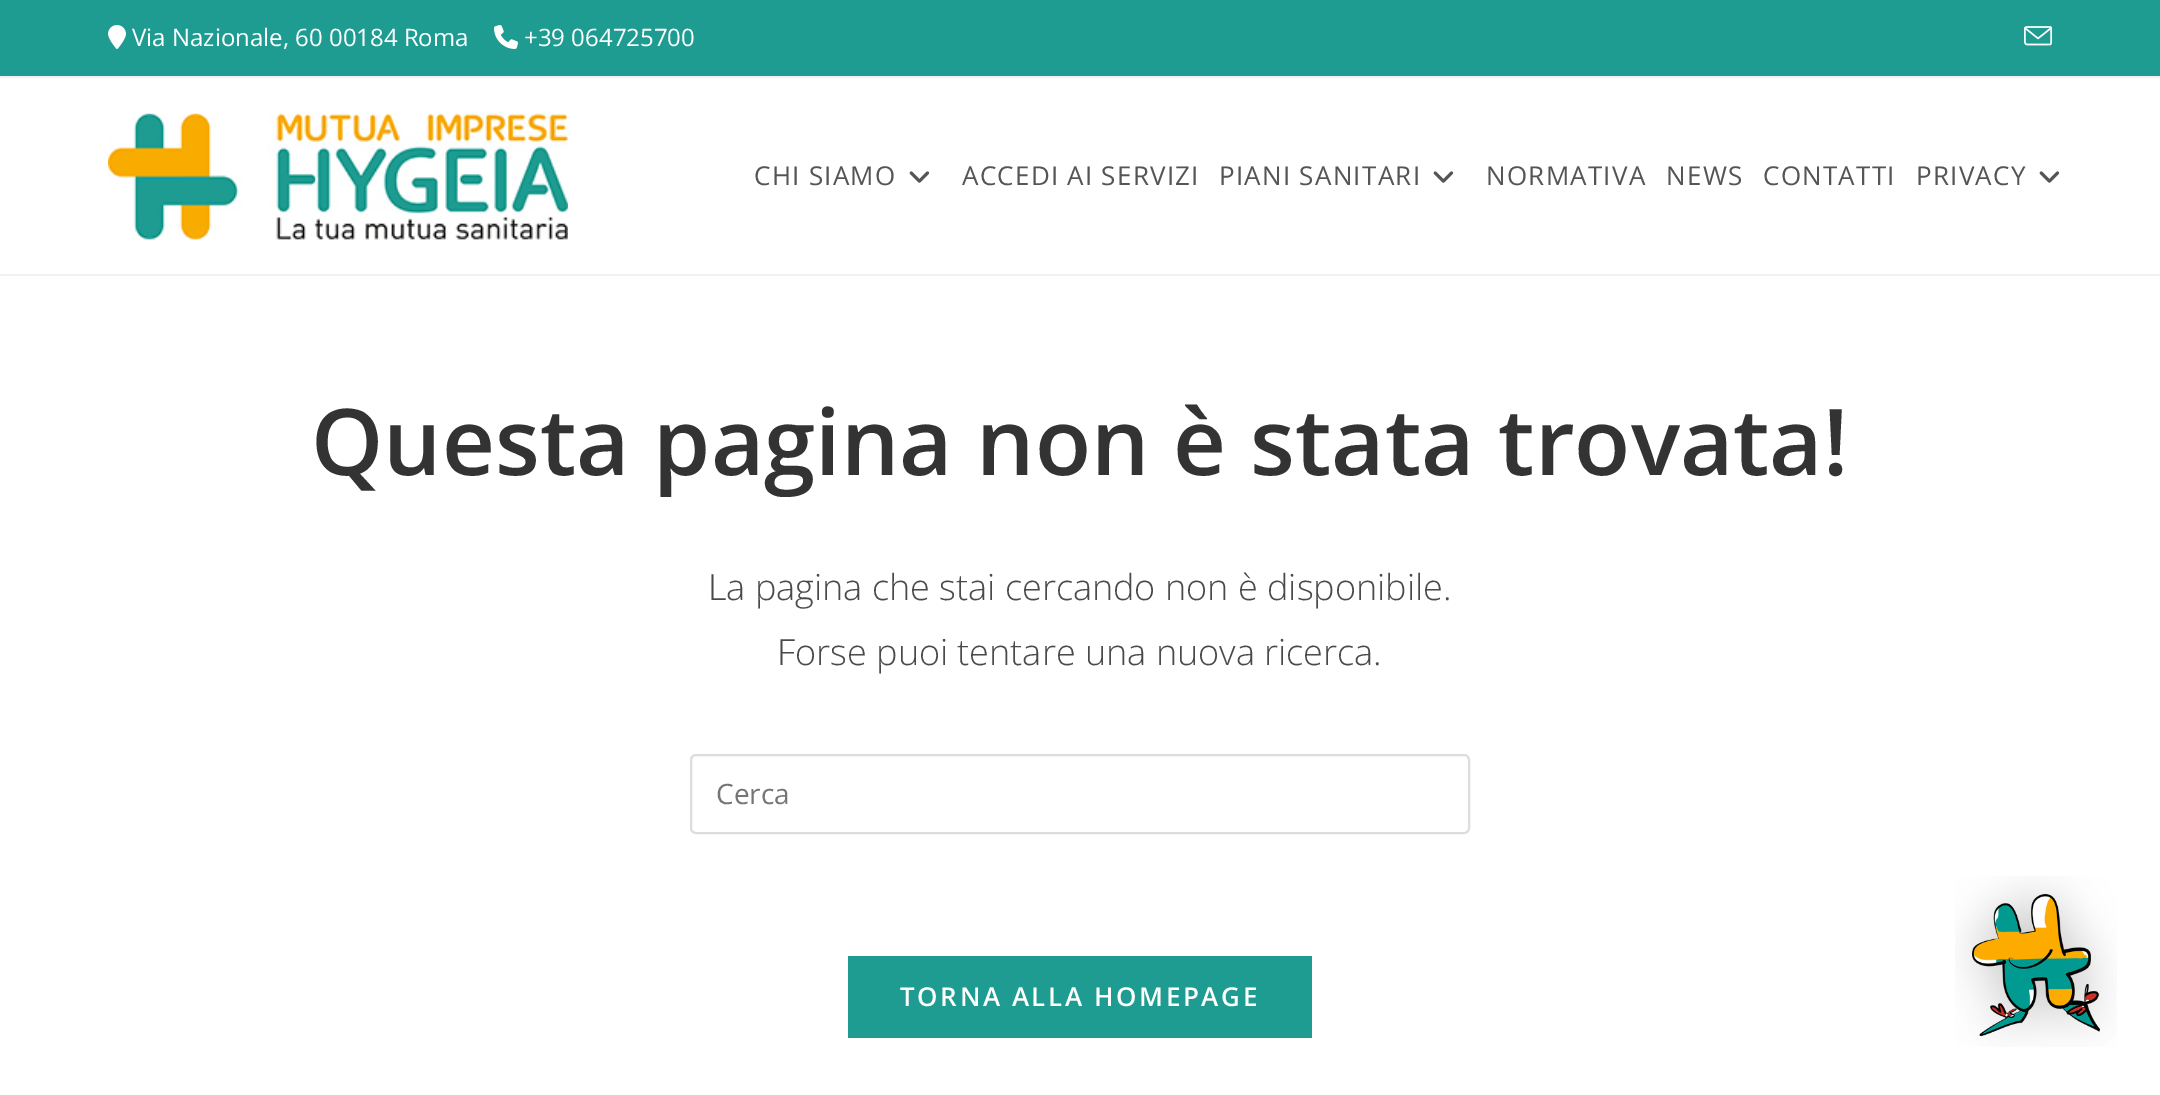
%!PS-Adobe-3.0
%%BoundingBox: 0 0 2160 1095
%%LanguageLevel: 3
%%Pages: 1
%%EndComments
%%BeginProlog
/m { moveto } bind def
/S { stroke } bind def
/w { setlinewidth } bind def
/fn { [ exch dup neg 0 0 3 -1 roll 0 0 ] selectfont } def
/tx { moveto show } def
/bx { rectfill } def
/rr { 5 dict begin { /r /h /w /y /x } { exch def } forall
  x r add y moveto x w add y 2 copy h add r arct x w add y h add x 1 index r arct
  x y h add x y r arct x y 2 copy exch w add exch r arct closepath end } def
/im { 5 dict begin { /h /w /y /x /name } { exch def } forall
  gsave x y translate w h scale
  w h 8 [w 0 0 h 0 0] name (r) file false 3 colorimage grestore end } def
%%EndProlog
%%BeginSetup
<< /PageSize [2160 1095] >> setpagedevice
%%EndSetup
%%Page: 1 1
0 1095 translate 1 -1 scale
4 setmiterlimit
1 setgray
0 0 2160 1095 bx
0.118 0.612 0.569 setrgbcolor
0 0 2160 76 bx
0.945 setgray
0 76 2160 2 bx
(image0.raw) 108 25 18 24 im
/OpenSans-Regular 24 fn
1 setgray
(Via Nazionale, 60 00184 Roma) 132 46 tx
(image1.raw) 494 25 24 24 im
(+39 064725700) 524 46 tx
(image2.raw) 2024 26 29 20 im
0.945 setgray
0 274 2160 2 bx
(image3.raw) 108 113 460 127 im
/OpenSans-Regular 26 fn
0.333 setgray
754 185 m 1.25 0 (CHI SIAMO) ashow
(image4.raw) 909 171 21 12 im
962 185 m 1.25 0 (ACCEDI AI SERVIZI) ashow
1219 185 m 1.25 0 (PIANI SANITARI) ashow
(image4.raw) 1433 171 21 12 im
1486 185 m 1.25 0 (NORMATIVA) ashow
1666 185 m 1.25 0 (NEWS) ashow
1763 185 m 1.25 0 (CONTATTI) ashow
1916 185 m 1.25 0 (PRIVACY) ashow
(image4.raw) 2039 171 21 12 im
/OpenSans-SemiBold 92 fn
0.2 setgray
(Questa pagina non è stata trovata!) 311 475 tx
/OpenSans-Light 36 fn
0.29 setgray
(La pagina che stai cercando non è disponibile.) 708 600 tx
(Forse puoi tentare una nuova ricerca.) 777 665 tx
0.867 setgray
2 w
691 755 778 78 5 rr S
/OpenSans-Regular 28 fn
0.459 setgray
(Cerca) 716 804 tx
0.118 0.612 0.569 setrgbcolor
848 956 464 82 bx
/OpenSans-SemiBold 26 fn
1 setgray
900 1006 m 2.6 0 (TORNA ALLA HOMEPAGE) ashow
(image5.raw) 1955 876 162 171 im
showpage
%%EOF
